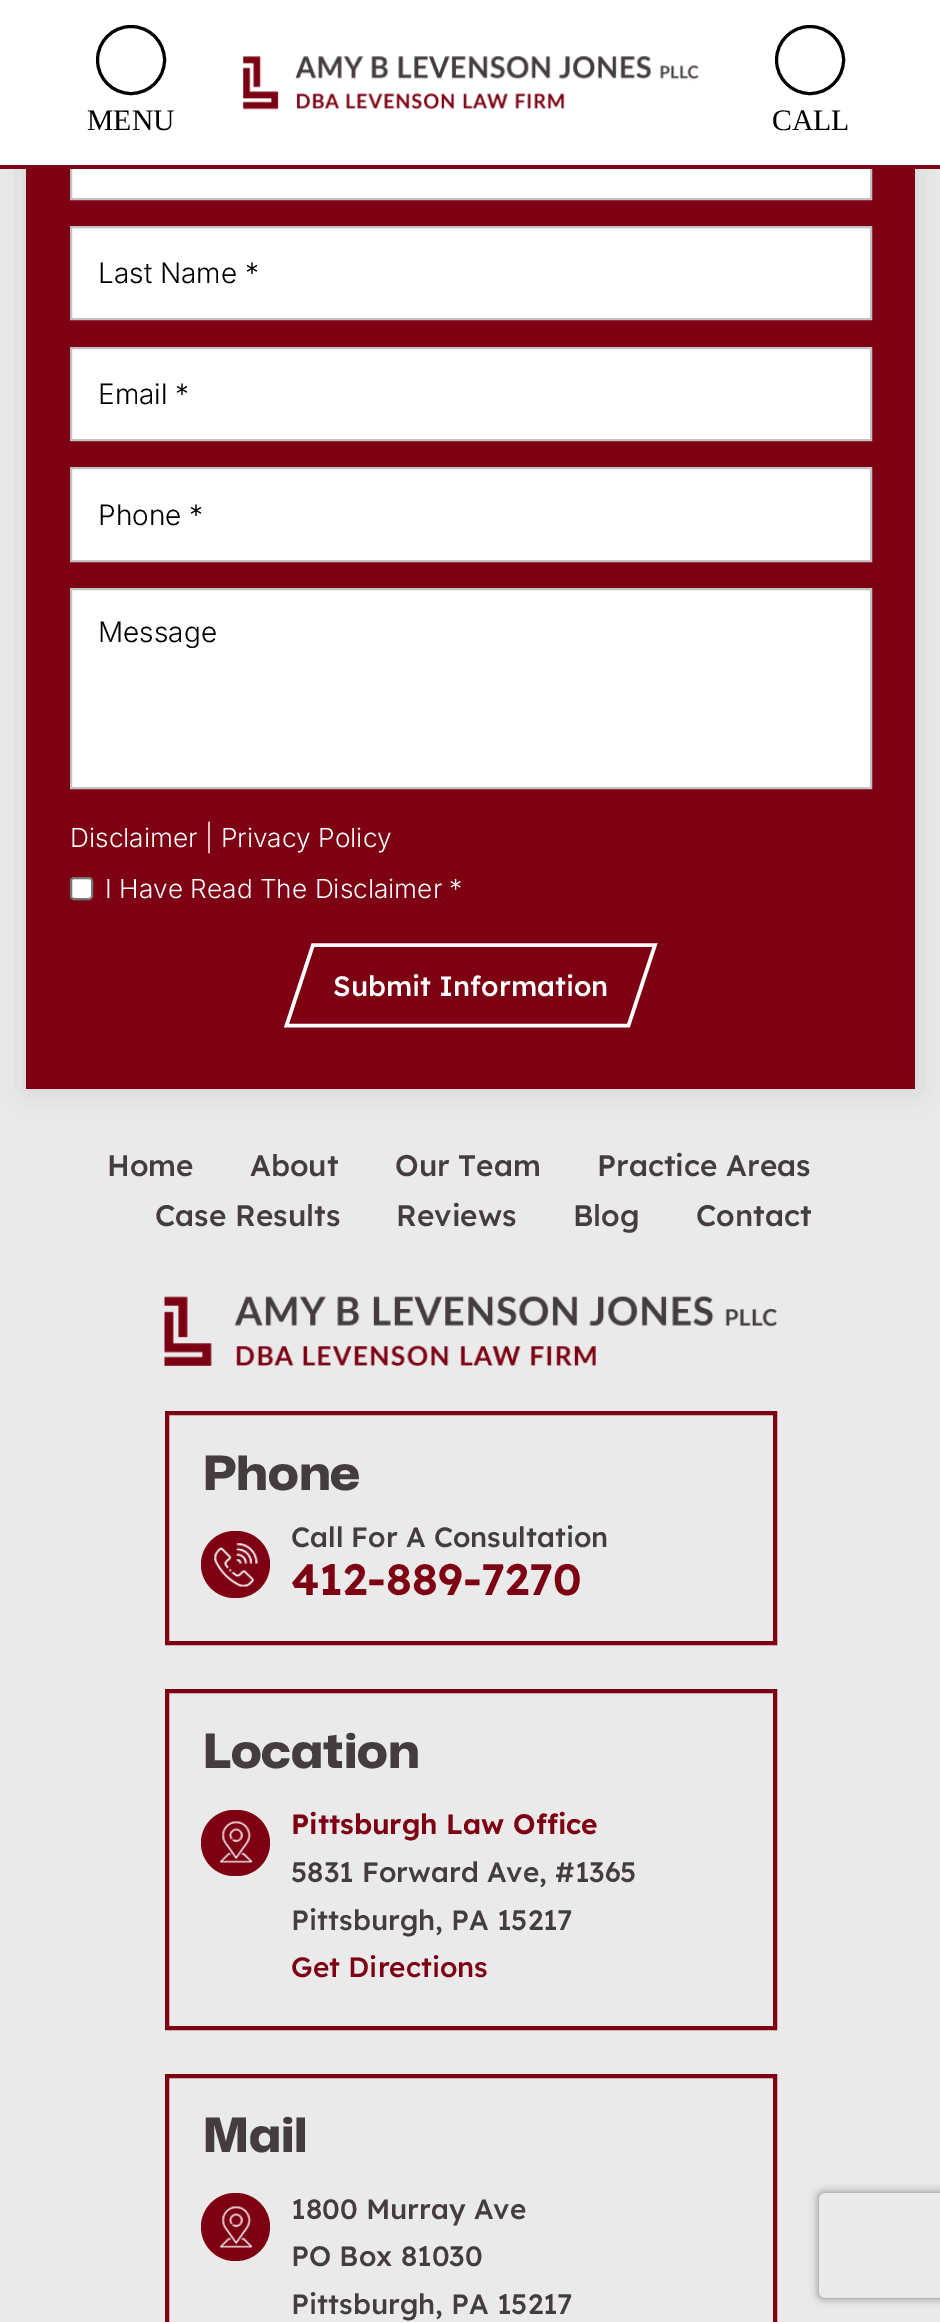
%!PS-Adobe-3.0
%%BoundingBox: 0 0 940 2322
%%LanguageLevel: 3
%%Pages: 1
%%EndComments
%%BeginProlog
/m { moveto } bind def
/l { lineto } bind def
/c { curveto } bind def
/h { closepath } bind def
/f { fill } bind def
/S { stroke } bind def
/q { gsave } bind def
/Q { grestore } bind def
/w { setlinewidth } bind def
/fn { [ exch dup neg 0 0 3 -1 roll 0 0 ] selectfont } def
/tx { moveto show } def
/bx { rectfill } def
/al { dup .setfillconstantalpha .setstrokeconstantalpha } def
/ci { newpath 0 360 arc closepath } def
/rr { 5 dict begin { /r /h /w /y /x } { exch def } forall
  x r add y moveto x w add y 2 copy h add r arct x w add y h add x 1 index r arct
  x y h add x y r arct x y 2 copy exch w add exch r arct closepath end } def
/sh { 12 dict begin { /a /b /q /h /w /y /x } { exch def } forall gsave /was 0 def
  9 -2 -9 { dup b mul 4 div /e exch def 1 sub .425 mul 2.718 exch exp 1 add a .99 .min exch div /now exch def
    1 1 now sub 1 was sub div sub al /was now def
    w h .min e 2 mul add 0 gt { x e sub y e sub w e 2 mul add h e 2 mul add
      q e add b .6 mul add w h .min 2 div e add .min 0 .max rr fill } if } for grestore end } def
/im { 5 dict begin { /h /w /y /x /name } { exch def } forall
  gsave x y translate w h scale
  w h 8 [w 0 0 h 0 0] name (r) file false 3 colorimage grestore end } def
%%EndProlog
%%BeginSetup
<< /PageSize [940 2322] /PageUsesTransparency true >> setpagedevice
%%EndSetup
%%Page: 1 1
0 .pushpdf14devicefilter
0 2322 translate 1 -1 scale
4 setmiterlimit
0.918 setgray
0 0 940 2322 bx
0 setgray
26 -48 889 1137 0 16 0.1 sh
0.49 0 0.075 setrgbcolor
26 169 889 920 bx
1 setgray
72 169 798 29 bx
0.761 setgray
2 w
71 106 800 93 rectstroke
1 setgray
0 0 940 165 bx
0.498 0.024 0.098 setrgbcolor
0 165 940 4 bx
(image0.raw) 243 56 456 54 im
0 setgray
3 w
131 60 33.5 ci S
/LiberationSerif-Regular 29.75 fn
(MENU) 87 130 tx
810 60 33.5 ci S
(CALL) 772 130 tx
1 setgray
71 227 m 871 227 l 871 319 l 71 319 l h q f Q
0.761 setgray
2 w
S
/Inter-Light 28 fn
0 setgray
(Last Name *) 98 283 tx
1 setgray
71 348 m 871 348 l 871 440 l 71 440 l h q f Q
0.761 setgray
S
0 setgray
(Email *) 98 404 tx
1 setgray
71 468 m 871 468 l 871 561 l 71 561 l h q f Q
0.761 setgray
S
0 setgray
(Phone *) 98 525 tx
1 setgray
71 589 m 871 589 l 871 788 l 71 788 l h q f Q
0.761 setgray
S
0 setgray
(Message) 98 642 tx
/Inter-Light 26.25 fn
1 setgray
(Disclaimer) 70 847 tx
(| Privacy Policy) 205 847 tx
71 878 21 21 3 rr q f Q
0.463 setgray
S
1 setgray
(I Have Read The Disclaimer *) 105 898 tx
3.5 w
313 945 m 655 945 l 628.5 1025.5 l 286.5 1025.5 l h S
/Lexend-Medium 28 fn
(Submit Information) 333 996 tx
/Lexend-Medium 29.75 fn
0.267 0.235 0.255 setrgbcolor
(Home) 107 1176 tx
(About) 250 1176 tx
(Our Team) 395 1176 tx
(Practice Areas) 597 1176 tx
(Case Results) 155 1226 tx
(Reviews) 396 1226 tx
(Blog) 573 1226 tx
(Contact) 696 1226 tx
(image1.raw) 164 1296 613 70 im
0.49 0 0.075 setrgbcolor
4 w
167 1413 608 230 rectstroke
/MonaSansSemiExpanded-ExtraBold 47.25 fn
0.267 0.235 0.255 setrgbcolor
(Phone) 203 1490 tx
/Lexend-Medium 28 fn
(Call For A Consultation) 291 1547 tx
0.49 0 0.075 setrgbcolor
201 1531 69 67 33.5 rr f
(image2.raw) 214 1543 44 44 im
/Lexend-SemiBold 43.75 fn
(412-889-7270) 291 1595 tx
167 1691 608 337 rectstroke
/MonaSansSemiExpanded-ExtraBold 47.25 fn
0.267 0.235 0.255 setrgbcolor
(Location) 203 1768 tx
0.49 0 0.075 setrgbcolor
201 1810 69 66 33 rr f
(image3.raw) 220 1821 32 42 im
/Lexend-SemiBold 28 fn
(Pittsburgh Law Office) 291 1834 tx
/Lexend-Medium 28 fn
0.267 0.235 0.255 setrgbcolor
(5831 Forward Ave, #1365) 291 1882 tx
(Pittsburgh, PA 15217) 291 1930 tx
0.49 0 0.075 setrgbcolor
(Get Directions) 291 1977 tx
167 2076 608 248 rectstroke
/MonaSansSemiExpanded-ExtraBold 47.25 fn
0.267 0.235 0.255 setrgbcolor
(Mail) 203 2152 tx
0.49 0 0.075 setrgbcolor
201 2193 69 68 34 rr f
(image3.raw) 220 2206 32 42 im
/Lexend-Medium 28 fn
0.267 0.235 0.255 setrgbcolor
(1800 Murray Ave) 291 2219 tx
(PO Box 81030) 291 2266 tx
(Pittsburgh, PA 15217) 291 2314 tx
q
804 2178 m 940 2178 l 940 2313 l 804 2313 l h 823 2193 m 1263 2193 l 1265 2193 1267 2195 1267 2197 c 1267 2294 l 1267 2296 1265 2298 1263 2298 c 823 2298 l 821 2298 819 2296 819 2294 c 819 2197 l 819 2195 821 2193 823 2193 c h eoclip newpath
0.502 setgray
819 2193 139 105 4 4.5 1 sh
Q
.poppdf14devicefilter showpage
%%EOF
